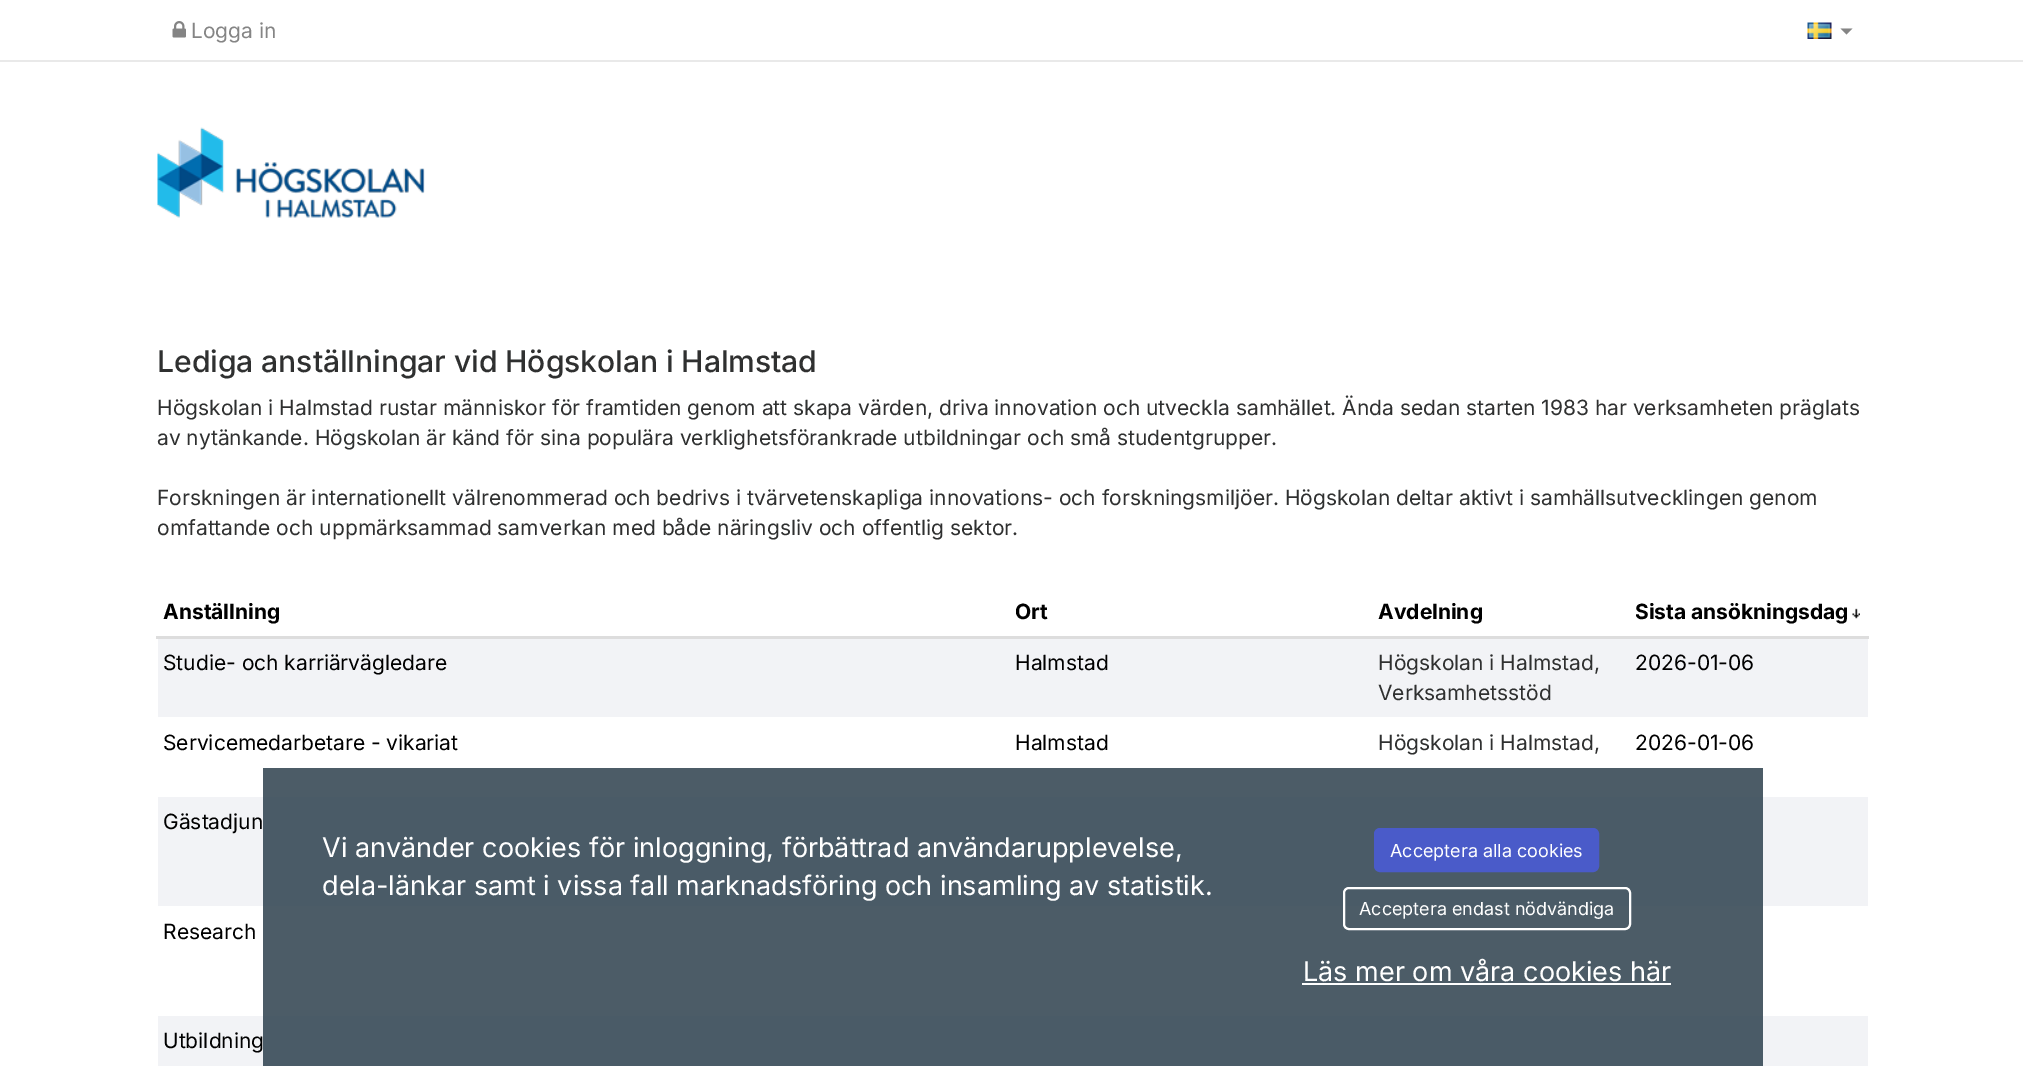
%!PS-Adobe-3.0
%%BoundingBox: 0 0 2023 1066
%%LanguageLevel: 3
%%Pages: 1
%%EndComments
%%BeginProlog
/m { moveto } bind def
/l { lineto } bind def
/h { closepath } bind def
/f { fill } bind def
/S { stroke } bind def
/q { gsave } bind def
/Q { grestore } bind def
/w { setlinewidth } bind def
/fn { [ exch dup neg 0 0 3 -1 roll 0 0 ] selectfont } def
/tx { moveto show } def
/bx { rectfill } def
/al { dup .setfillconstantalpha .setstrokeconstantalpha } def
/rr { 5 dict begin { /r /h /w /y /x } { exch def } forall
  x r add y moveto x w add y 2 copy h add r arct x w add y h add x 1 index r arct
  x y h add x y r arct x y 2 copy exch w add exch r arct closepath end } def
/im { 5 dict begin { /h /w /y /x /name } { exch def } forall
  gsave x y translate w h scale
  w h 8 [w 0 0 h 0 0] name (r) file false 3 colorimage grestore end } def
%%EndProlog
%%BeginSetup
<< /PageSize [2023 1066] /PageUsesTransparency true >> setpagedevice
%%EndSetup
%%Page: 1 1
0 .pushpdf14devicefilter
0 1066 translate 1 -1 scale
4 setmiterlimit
1 setgray
0 0 2023 1066 bx
0.914 setgray
0 60 2023 2 bx
(image0.raw) 172 21 14 17 im
/Inter-Regular 21 fn
0.522 setgray
(Logga in) 191 38 tx
(image1.raw) 1807 22 25 17 im
1840.5 28.5 m 1852.5 28.5 l 1846.5 34.5 l h f
(image2.raw) 157 127 268 91 im
/Inter-Medium 30 fn
0.184 0.188 0.188 setrgbcolor
(Lediga anställningar vid Högskolan i Halmstad) 157 372 tx
/Inter-Regular 21 fn
(Högskolan i Halmstad rustar människor för framtiden genom att skapa värden, driva innovation och utveckla samhället. Ända sedan starten 1983 har verksamheten präglats) 157 415 tx
(av nytänkande. Högskolan är känd för sina populära verklighetsförankrade utbildningar och små studentgrupper.) 157 445 tx
(Forskningen är internationellt välrenommerad och bedrivs i tvärvetenskapliga innovations- och forskningsmiljöer. Högskolan deltar aktivt i samhällsutvecklingen genom) 157 505 tx
(omfattande och uppmärksammad samverkan med både näringsliv och offentlig sektor.) 157 535 tx
/Inter-Bold 21 fn
0 setgray
(Anställning) 163 619 tx
(Ort) 1015 619 tx
(Avdelning) 1378 619 tx
0.867 setgray
156 636 1713 3 bx
0 setgray
(Sista ansökningsdag) 1635 619 tx
(image3.raw) 1852 608 8 11 im
0.949 0.953 0.965 setrgbcolor
158 639 1710 78 bx
/Inter-Regular 21 fn
0 setgray
(Studie- och karriärvägledare) 163 670 tx
(Halmstad) 1015 670 tx
0.184 0.188 0.188 setrgbcolor
(Högskolan i Halmstad,) 1378 670 tx
(Verksamhetsstöd) 1378 700 tx
0 setgray
(2026-01-06) 1635 670 tx
(Servicemedarbetare - vikariat) 163 750 tx
(Halmstad) 1015 750 tx
0.184 0.188 0.188 setrgbcolor
(Högskolan i Halmstad,) 1378 750 tx
0 setgray
(2026-01-06) 1635 750 tx
0.949 0.953 0.965 setrgbcolor
158 797 1710 109 bx
0 setgray
(Gästadjun) 163 829 tx
(Research) 163 939 tx
0.949 0.953 0.965 setrgbcolor
158 1016 1710 50 bx
0 setgray
(Utbildning) 163 1048 tx
0.9 al
0.22 0.29 0.341 setrgbcolor
263 768 1500 298 bx
/Inter-Regular 27 fn
1 al
1 setgray
(Vi använder cookies för inloggning, förbättrad användarupplevelse,) 322 857 tx
(dela-länkar samt i vissa fall marknadsföring och insamling av statistik.) 322 895 tx
0.29 0.357 0.788 setrgbcolor
1375 829 223 42 5 rr q f Q
2 w
S
/Inter-Regular 18 fn
1 setgray
(Acceptera alla cookies) 1390 857 tx
1344 888 286 41 5 rr S
(Acceptera endast nödvändiga) 1359 915 tx
/Inter-Regular 27 fn
(Läs mer om våra cookies här) 1303 981 tx
1302 983 369 2 bx
.poppdf14devicefilter showpage
%%EOF
